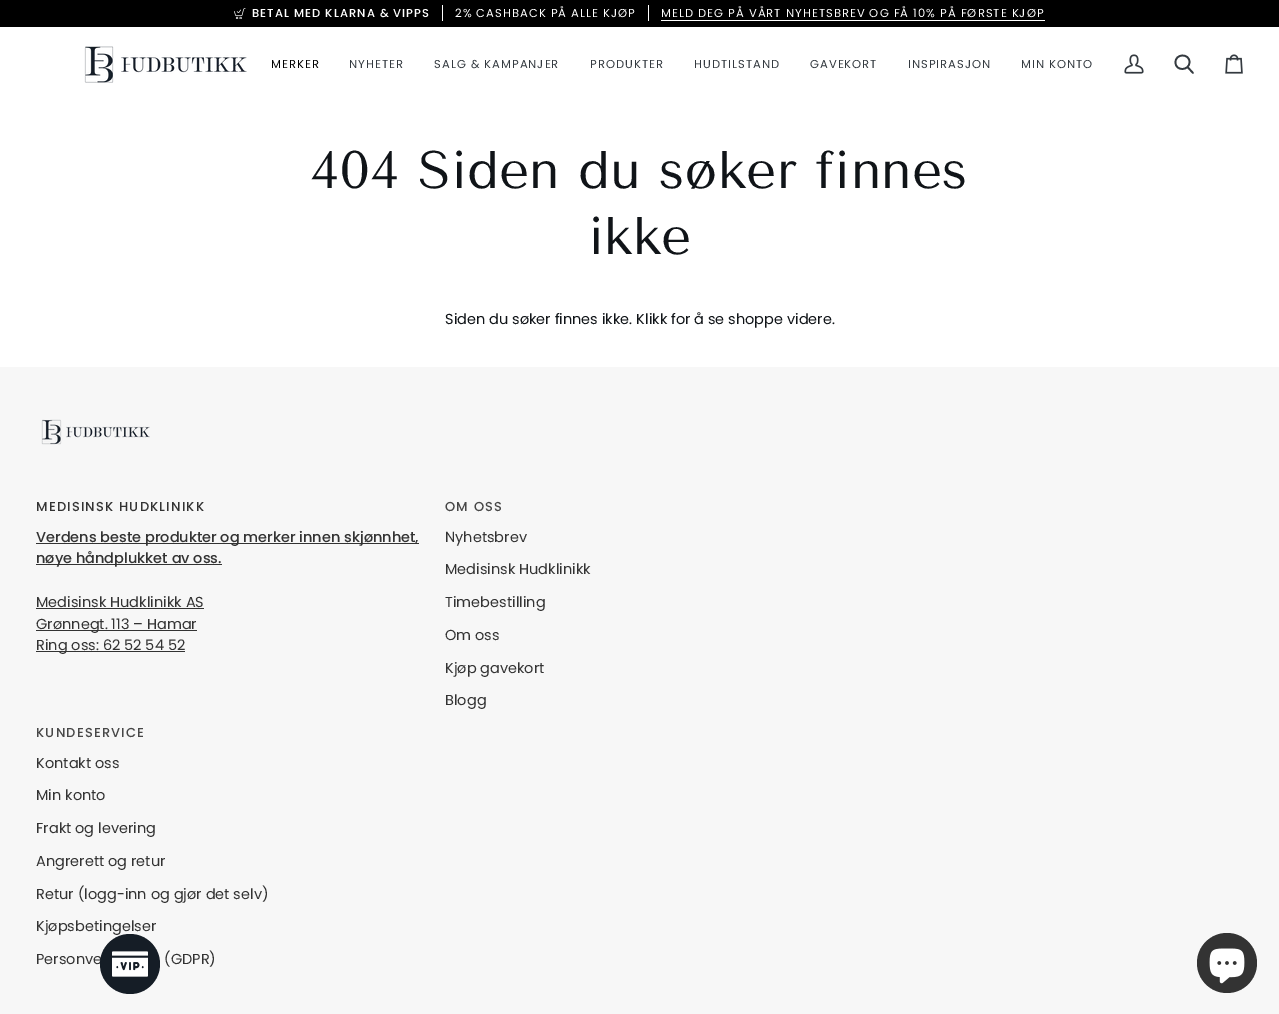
%!PS-Adobe-3.0
%%BoundingBox: 0 0 1279 1014
%%LanguageLevel: 3
%%Pages: 1
%%EndComments
%%BeginProlog
/m { moveto } bind def
/l { lineto } bind def
/c { curveto } bind def
/h { closepath } bind def
/f { fill } bind def
/S { stroke } bind def
/w { setlinewidth } bind def
/fn { [ exch dup neg 0 0 3 -1 roll 0 0 ] selectfont } def
/tx { moveto show } def
/bx { rectfill } def
/ci { newpath 0 360 arc closepath } def
/im { 5 dict begin { /h /w /y /x /name } { exch def } forall
  gsave x y translate w h scale
  w h 8 [w 0 0 h 0 0] name (r) file false 3 colorimage grestore end } def
%%EndProlog
%%BeginSetup
<< /PageSize [1279 1014] >> setpagedevice
%%EndSetup
%%Page: 1 1
0 1014 translate 1 -1 scale
4 setmiterlimit
1 setgray
0 0 1279 1014 bx
0 setgray
0 0 1279 27 bx
(image0.raw) 234 8 12 11 im
/Poppins-Medium 11.5 fn
1 setgray
252 17 m 1.03 0 (BETAL MED KLARNA & VIPPS) ashow
442 5 1 16 bx
/Poppins-Regular 11.5 fn
455 17 m 1.03 0 (2% CASHBACK PÅ ALLE KJØP) ashow
648 5 1 16 bx
661 17 m 1.03 0 (MELD DEG PÅ VÅRT NYHETSBREV OG FÅ 10% PÅ FØRSTE KJØP) ashow
661 20 384 1 bx
(image1.raw) 84 46 163 37 im
0 setgray
271 68 m 1.03 0 (MERKER) ashow
0.204 0.227 0.251 setrgbcolor
349 68 m 1.03 0 (NYHETER) ashow
434 68 m 1.03 0 (SALG & KAMPANJER) ashow
590 68 m 1.03 0 (PRODUKTER) ashow
694 68 m 1.03 0 (HUDTILSTAND) ashow
810 68 m 1.03 0 (GAVEKORT) ashow
908 68 m 1.03 0 (INSPIRASJON) ashow
1021 68 m 1.03 0 (MIN KONTO) ashow
(image2.raw) 1124 54 20 20 im
1.7 w
1 setlinecap
1 setlinejoin
1189.5 62 m 1189.5 71 1175.5 71.5 1175.5 62.5 c 1175 53.5 1189.5 53 1189.5 62 c h 1193 73 m 1187.5 67 l h S
(image3.raw) 1225 54 18 20 im
/TenorSans-Regular 52.75 fn
0.063 0.078 0.094 setrgbcolor
(404 Siden du søker finnes) 310 188 tx
(ikke) 588 254 tx
/Poppins-Regular 14.5 fn
(Siden du søker finnes ikke. Klikk for å se shoppe videre.) 445 324 tx
0.969 setgray
0 367 1279 647 bx
(image4.raw) 41 419 109 26 im
/Poppins-Medium 13 fn
0.2 setgray
36 511 m 1.2 0 (MEDISINSK HUDKLINIKK) ashow
36 543 383 1 bx
/Poppins-Medium 14.5 fn
(Verdens beste produkter og merker innen skjønnhet,) 36 542 tx
36 564 186 1 bx
(nøye håndplukket av oss.) 36 563 tx
/Poppins-Regular 14.5 fn
(Medisinsk Hudklinikk AS) 36 607 tx
36 608 168 1 bx
36 630 161 1 bx
(Grønnegt. 113 – Hamar) 36 629 tx
36 651 149 1 bx
(Ring oss: 62 52 54 52) 36 650 tx
/Poppins-Medium 13 fn
0.278 setgray
445 511 m 1.2 0 (OM OSS) ashow
/Poppins-Regular 14.5 fn
0.2 setgray
(Nyhetsbrev) 445 542 tx
(Medisinsk Hudklinikk) 445 574 tx
(Timebestilling) 445 607 tx
(Om oss) 445 640 tx
(Kjøp gavekort) 445 673 tx
(Blogg) 445 705 tx
/Poppins-Medium 13 fn
0.278 setgray
36 737 m 1.2 0 (KUNDESERVICE) ashow
/Poppins-Regular 14.5 fn
0.2 setgray
(Kontakt oss) 36 768 tx
(Min konto) 36 800 tx
(Frakt og levering) 36 833 tx
(Angrerett og retur) 36 866 tx
(Retur \(logg-inn og gjør det selv\)) 36 899 tx
(Kjøpsbetingelser) 36 931 tx
(Personve) 36 964 tx
(\(GDPR\)) 164 964 tx
1227 963 30 ci f
(image5.raw) 1209 948 36 36 im
0.082 0.114 0.149 setrgbcolor
130 964 30 ci f
(image6.raw) 112 951 36 26 im
showpage
%%EOF
